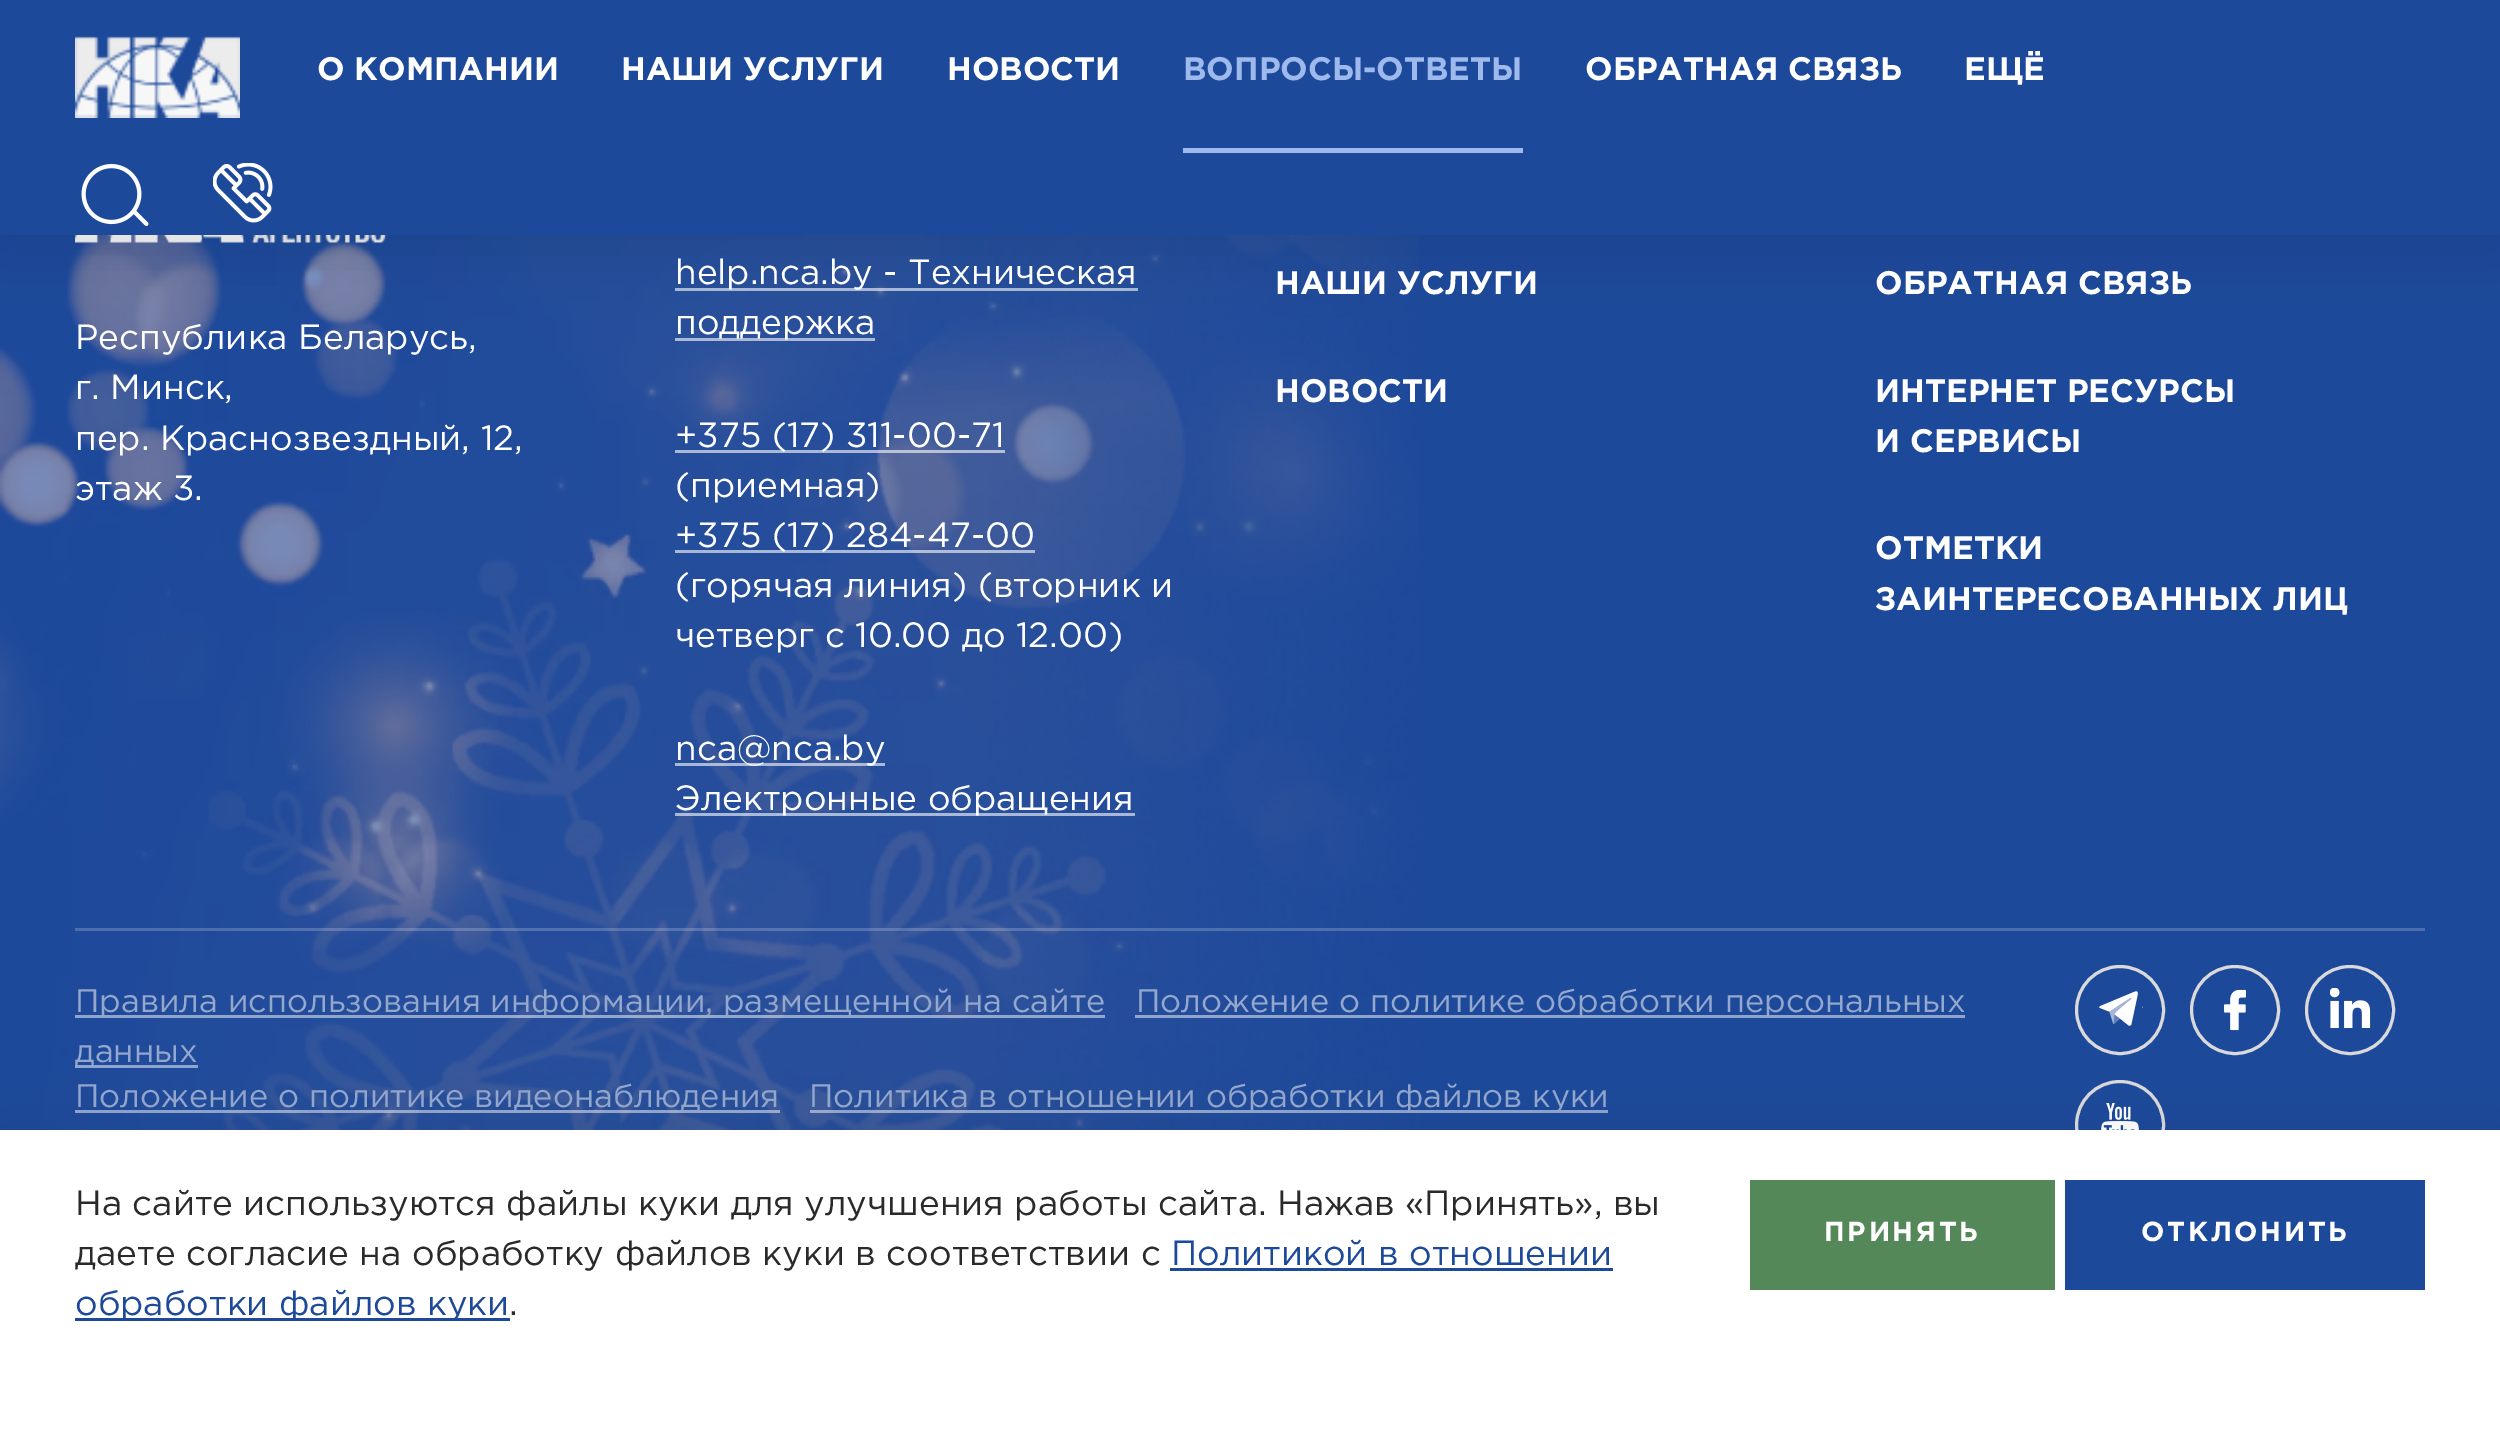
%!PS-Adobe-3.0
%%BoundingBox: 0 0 2500 1430
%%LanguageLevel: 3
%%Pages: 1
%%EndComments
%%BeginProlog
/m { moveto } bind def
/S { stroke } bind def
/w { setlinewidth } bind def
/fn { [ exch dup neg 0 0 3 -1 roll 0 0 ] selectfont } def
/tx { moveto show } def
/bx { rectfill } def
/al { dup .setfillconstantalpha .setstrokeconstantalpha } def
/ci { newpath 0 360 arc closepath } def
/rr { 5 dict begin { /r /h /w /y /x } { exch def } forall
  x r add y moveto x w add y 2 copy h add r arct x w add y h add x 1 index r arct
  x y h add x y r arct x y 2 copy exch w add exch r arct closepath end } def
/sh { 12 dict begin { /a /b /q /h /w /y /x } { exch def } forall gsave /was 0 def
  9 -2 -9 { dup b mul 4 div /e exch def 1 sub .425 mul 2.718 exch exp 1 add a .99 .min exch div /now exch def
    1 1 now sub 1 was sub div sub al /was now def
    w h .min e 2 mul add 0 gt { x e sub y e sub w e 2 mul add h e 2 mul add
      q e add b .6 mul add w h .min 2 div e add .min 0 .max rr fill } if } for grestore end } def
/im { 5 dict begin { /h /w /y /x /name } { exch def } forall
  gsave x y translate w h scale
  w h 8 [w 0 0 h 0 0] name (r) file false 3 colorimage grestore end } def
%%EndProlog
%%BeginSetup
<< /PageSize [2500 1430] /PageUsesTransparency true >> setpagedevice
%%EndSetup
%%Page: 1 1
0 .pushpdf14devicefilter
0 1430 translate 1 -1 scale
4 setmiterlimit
0.114 0.286 0.608 setrgbcolor
0 0 2500 1430 bx
(image3.raw) 0 235 1419 895 im
(image4.raw) 75 235 312 8 im
0.6 al
1 setgray
675 288 463 3 bx
675 338 200 3 bx
1 al
0 setgray
0 13 2500 235 0 31 0.1 sh
0.114 0.286 0.608 setrgbcolor
0 0 2500 235 bx
(image0.raw) 75 36 165 82 im
/Gotham-Bold 32.5 fn
1 setgray
(O КОМПАНИИ) 317 80 tx
(НАШИ УСЛУГИ) 621 80 tx
(НОВОСТИ) 947 80 tx
0.62 0.729 0.929 setrgbcolor
(ВОПРОСЫ-ОТВЕТЫ) 1183 80 tx
1183 148 340 5 bx
1 setgray
(ОБРАТНАЯ СВЯЗЬ) 1585 80 tx
(ЕЩЁ) 1964 80 tx
(image1.raw) 81 164 68 62 im
(image2.raw) 213 163 60 60 im
/Gotham-Regular 35 fn
(Республика Беларусь,) 75 349 tx
(г. Минск,) 75 399 tx
(пер. Краснозвездный, 12,) 75 450 tx
(этаж 3.) 75 500 tx
(help.nca.by - Техническая) 675 284 tx
(поддержка) 675 334 tx
0.6 al
675 450 330 3 bx
1 al
(+375 \(17\) 311-00-71) 675 447 tx
(\(приемная\)) 675 497 tx
0.6 al
675 550 360 3 bx
1 al
(+375 \(17\) 284-47-00) 675 547 tx
(\(горячая линия\) \(вторник и) 675 597 tx
(четверг с 10.00 до 12.00\)) 675 647 tx
0.6 al
675 763 210 3 bx
1 al
(nca@nca.by) 675 760 tx
0.6 al
675 813 460 3 bx
1 al
(Электронные обращения) 675 810 tx
/Gotham-Bold 32.5 fn
(НАШИ УСЛУГИ) 1275 294 tx
(НОВОСТИ) 1275 402 tx
(ОБРАТНАЯ СВЯЗЬ) 1875 294 tx
(ИНТЕРНЕТ РЕСУРСЫ) 1875 402 tx
(И СЕРВИСЫ) 1875 452 tx
(ОТМЕТКИ) 1875 559 tx
(ЗАИНТЕРЕСОВАННЫХ ЛИЦ) 1875 610 tx
0.2 al
75 928 2350 3 bx
0.5 al
75 1015 1030 3 bx
/Gotham-Regular 32.5 fn
1 al
0.58 0.655 0.804 setrgbcolor
(Правила использования информации, размещенной на сайте) 75 1012 tx
0.5 al
1 setgray
1135 1015 830 3 bx
1 al
0.58 0.655 0.804 setrgbcolor
(Положение о политике обработки персональных) 1136 1012 tx
0.565 0.647 0.804 setrgbcolor
75 1065 123 3 bx
0.58 0.655 0.804 setrgbcolor
(данных) 75 1062 tx
0.5 al
1 setgray
75 1110 705 3 bx
1 al
0.58 0.655 0.804 setrgbcolor
(Положение о политике видеонаблюдения) 75 1107 tx
0.5 al
1 setgray
810 1110 798 3 bx
1 al
0.58 0.655 0.804 setrgbcolor
(Политика в отношении обработки файлов куки) 809 1107 tx
0.855 setgray
3 w
2120 1010 43.5 ci S
(image5.raw) 2099 991 44 35 im
2235 1010 43.5 ci S
(image6.raw) 2224 989 22 42 im
2350 1010 43.5 ci S
(image7.raw) 2329 988 42 40 im
2120 1125 43.5 ci S
(image8.raw) 2101 1103 38 27 im
0 setgray
0 1143 2500 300 0 31 0.1 sh
1 setgray
0 1130 2500 300 bx
/Gotham-Regular 35 fn
0.165 setgray
(На сайте используются файлы куки для улучшения работы сайта. Нажав «Принять», вы) 75 1215 tx
(даете согласие на обработку файлов куки в соответствии с) 75 1265 tx
0.114 0.286 0.608 setrgbcolor
(Политикой в отношении) 1171 1265 tx
1170 1268 443 3 bx
75 1318 435 3 bx
(обработки файлов куки) 75 1315 tx
0.165 setgray
(.) 509 1315 tx
0.333 0.533 0.345 setrgbcolor
1750 1180 305 110 bx
/Gotham-Bold 27.5 fn
1 setgray
1824 1241 m 2.75 0 (ПРИНЯТЬ) ashow
0.114 0.286 0.608 setrgbcolor
2065 1180 360 110 bx
1 setgray
2141 1241 m 2.75 0 (ОТКЛОНИТЬ) ashow
.poppdf14devicefilter showpage
%%EOF
